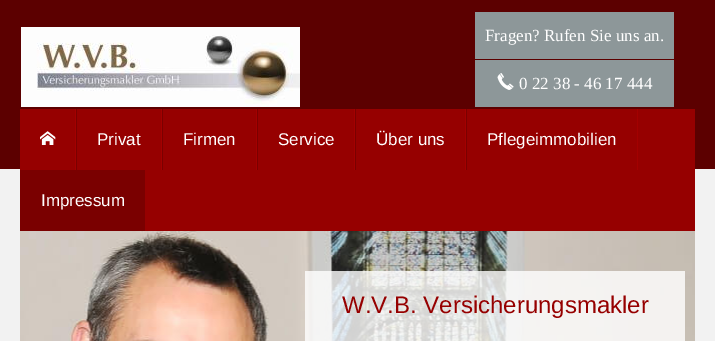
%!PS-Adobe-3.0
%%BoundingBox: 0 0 715 341
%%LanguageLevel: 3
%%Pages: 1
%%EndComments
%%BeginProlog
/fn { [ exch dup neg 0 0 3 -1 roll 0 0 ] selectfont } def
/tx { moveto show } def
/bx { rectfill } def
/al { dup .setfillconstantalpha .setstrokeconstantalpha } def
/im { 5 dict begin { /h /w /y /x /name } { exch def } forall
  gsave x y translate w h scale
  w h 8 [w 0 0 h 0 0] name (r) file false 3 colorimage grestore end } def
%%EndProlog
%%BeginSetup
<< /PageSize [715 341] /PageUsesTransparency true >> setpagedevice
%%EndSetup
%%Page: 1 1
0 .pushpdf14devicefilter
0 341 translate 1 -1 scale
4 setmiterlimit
0.949 setgray
0 0 715 341 bx
0.361 0 0 setrgbcolor
0 0 715 169 bx
(image0.raw) 20 231 675 110 im
(image1.raw) 21 27 279 80 im
0.553 0.592 0.6 setrgbcolor
475 12 199 47 bx
/LiberationSerif-Regular 17 fn
1 setgray
(Fragen? Rufen Sie uns an.) 485 41 tx
0.553 0.592 0.6 setrgbcolor
475 60 199 47 bx
(image2.raw) 497 73 17 17 im
1 setgray
(0 22 38 - 46 17 444) 519 89 tx
0.8 al
305 271 380 70 bx
/LiberationSans-Regular 24 fn
1 al
0.588 0 0 setrgbcolor
(W.V.B. Versicherungsmakler) 342 313 tx
20 109 675 122 bx
0.639 0 0 setrgbcolor
75 109 1 61 bx
(image3.raw) 40 131 16 14 im
161 109 1 61 bx
0.478 0 0 setrgbcolor
76 109 1 61 bx
/LiberationSans-Regular 17 fn
1 setgray
(Privat) 97 145 tx
0.639 0 0 setrgbcolor
256 109 1 61 bx
0.478 0 0 setrgbcolor
162 109 1 61 bx
1 setgray
(Firmen) 183 145 tx
0.639 0 0 setrgbcolor
354 109 1 61 bx
0.478 0 0 setrgbcolor
257 109 1 61 bx
1 setgray
(Service) 278 145 tx
0.639 0 0 setrgbcolor
465 109 1 61 bx
0.478 0 0 setrgbcolor
355 109 1 61 bx
1 setgray
(Über uns) 376 145 tx
0.639 0 0 setrgbcolor
637 109 1 61 bx
0.478 0 0 setrgbcolor
466 109 1 61 bx
1 setgray
(Pflegeimmobilien) 487 145 tx
0.478 0 0 setrgbcolor
20 170 125 61 bx
1 setgray
(Impressum) 41 206 tx
.poppdf14devicefilter showpage
%%EOF
